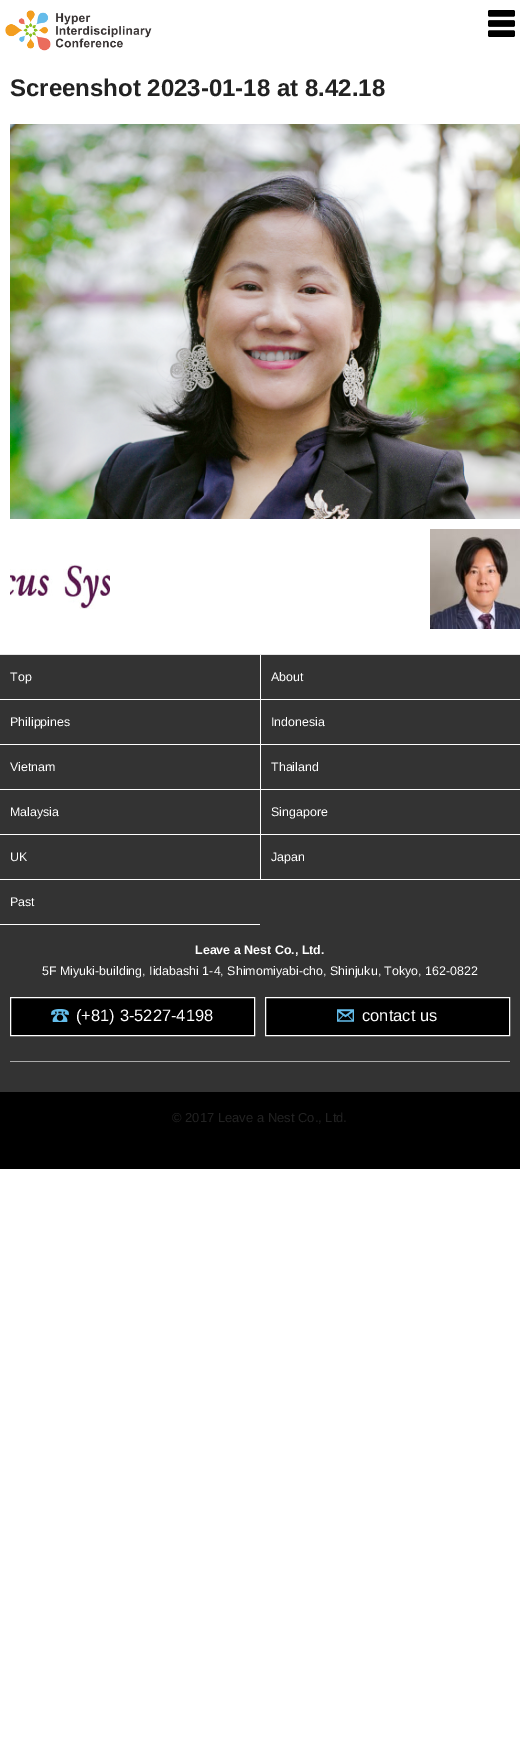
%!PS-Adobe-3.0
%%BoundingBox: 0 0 520 1763
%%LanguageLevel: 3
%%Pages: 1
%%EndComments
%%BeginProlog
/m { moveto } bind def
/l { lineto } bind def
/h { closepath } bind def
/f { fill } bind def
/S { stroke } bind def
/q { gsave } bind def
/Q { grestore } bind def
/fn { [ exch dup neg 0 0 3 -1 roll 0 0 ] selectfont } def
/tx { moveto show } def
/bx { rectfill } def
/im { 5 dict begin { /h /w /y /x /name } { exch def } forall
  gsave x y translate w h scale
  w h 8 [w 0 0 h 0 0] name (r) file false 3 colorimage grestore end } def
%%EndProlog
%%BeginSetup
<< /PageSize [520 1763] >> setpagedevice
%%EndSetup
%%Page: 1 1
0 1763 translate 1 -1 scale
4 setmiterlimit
1 setgray
0 0 520 1763 bx
(image0.raw) 5 10 147 41 im
(image1.raw) 488 10 27 27 im
0 setgray
0 1092 520 77 bx
0.902 setgray
0 654 520 1 bx
/LiberationSans-Bold 24 fn
0.133 setgray
(Screenshot 2023-01-18 at 8.42.18) 10 96 tx
(image2.raw) 10 124 510 395 im
(image3.raw) 10 564 100 45 im
(image4.raw) 430 529 90 100 im
0.2 setgray
0 655 520 437 bx
1 setgray
0 699 520 1 bx
/LiberationSans-Regular 12.45 fn
(Top) 10 681 tx
260 655 1 44 bx
(About) 271 681 tx
0 744 520 1 bx
(Philippines) 10 726 tx
260 700 1 44 bx
(Indonesia) 271 726 tx
0 789 520 1 bx
(Vietnam) 10 771 tx
260 745 1 44 bx
(Thailand) 271 771 tx
0 834 520 1 bx
(Malaysia) 10 816 tx
260 790 1 44 bx
(Singapore) 271 816 tx
0 879 520 1 bx
(UK) 10 861 tx
260 835 1 44 bx
(Japan) 271 861 tx
0 924 260 1 bx
(Past) 10 906 tx
0.667 setgray
10 1061 500 1 bx
/LiberationSans-Bold 12.45 fn
1 setgray
(Leave a Nest Co., Ltd.) 195 954 tx
/LiberationSans-Regular 12.45 fn
(5F Miyuki-building, Iidabashi 1-4, Shimomiyabi-cho, Shinjuku, Tokyo, 162-0822) 42 975 tx
0 setgray
10.5 997.5 m 254.5 997.5 l 254.5 1035.5 l 10.5 1035.5 l h q f Q
1 setgray
S
(image5.raw) 51 1009 18 13 im
/LiberationSans-Regular 16.5 fn
(\(+81\) 3-5227-4198) 76 1021 tx
0 setgray
265.5 997.5 m 509.5 997.5 l 509.5 1035.5 l 265.5 1035.5 l h q f Q
1 setgray
S
(image6.raw) 337 1009 17 13 im
(contact us) 362 1021 tx
/LiberationSans-Regular 13 fn
0.133 setgray
(© 2017 Leave a Nest Co., Ltd.) 172 1122 tx
showpage
%%EOF
